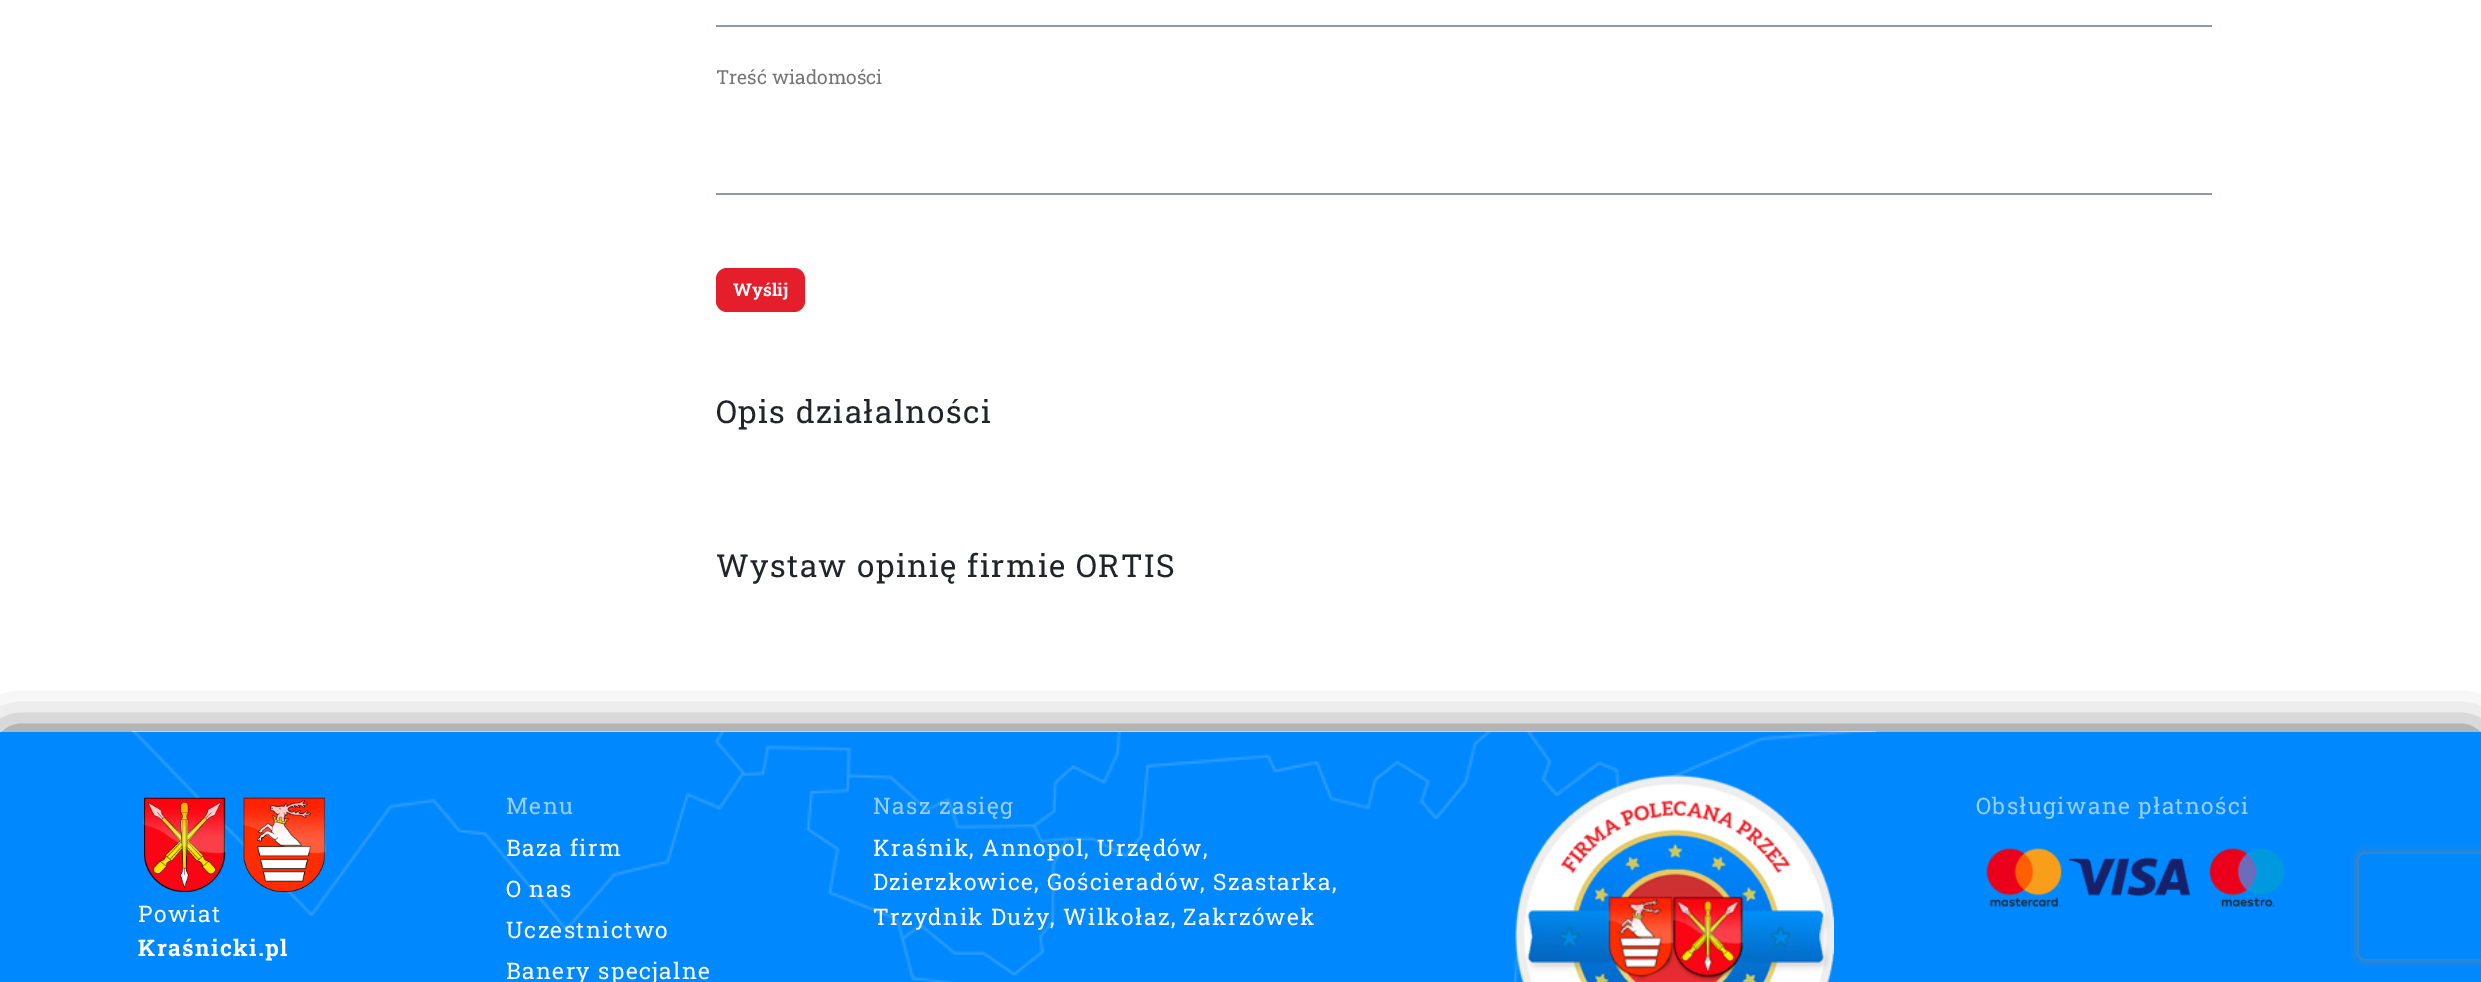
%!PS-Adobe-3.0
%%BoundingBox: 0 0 2481 982
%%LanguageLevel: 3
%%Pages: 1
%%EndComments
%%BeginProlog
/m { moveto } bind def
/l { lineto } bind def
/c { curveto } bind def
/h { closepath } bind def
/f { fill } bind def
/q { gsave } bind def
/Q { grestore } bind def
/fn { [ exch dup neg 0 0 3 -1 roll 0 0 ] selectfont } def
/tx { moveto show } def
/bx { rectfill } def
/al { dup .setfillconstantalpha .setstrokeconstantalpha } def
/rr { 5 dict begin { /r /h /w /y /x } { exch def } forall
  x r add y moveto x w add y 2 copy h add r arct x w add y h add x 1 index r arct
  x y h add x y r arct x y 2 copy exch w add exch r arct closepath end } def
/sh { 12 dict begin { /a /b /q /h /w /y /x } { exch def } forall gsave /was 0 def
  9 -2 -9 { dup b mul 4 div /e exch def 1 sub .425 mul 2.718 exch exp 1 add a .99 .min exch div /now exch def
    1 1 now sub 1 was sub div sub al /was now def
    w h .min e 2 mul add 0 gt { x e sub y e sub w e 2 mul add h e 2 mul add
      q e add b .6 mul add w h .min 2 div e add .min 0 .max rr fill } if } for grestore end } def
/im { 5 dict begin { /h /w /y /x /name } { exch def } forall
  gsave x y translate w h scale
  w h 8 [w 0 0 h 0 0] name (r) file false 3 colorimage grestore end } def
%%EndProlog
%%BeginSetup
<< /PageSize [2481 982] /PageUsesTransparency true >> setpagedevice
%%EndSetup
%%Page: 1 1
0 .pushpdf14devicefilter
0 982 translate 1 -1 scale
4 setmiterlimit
1 setgray
0 0 2481 982 bx
0.573 0.608 0.647 setrgbcolor
716 25 1496 2 bx
716 193 1496 2 bx
/RobotoSlab-Regular 19.25 fn
0.459 setgray
(Treść wiadomości) 716 84 tx
0.898 0.118 0.169 setrgbcolor
716 268 89 44 11 rr f
/RobotoSlab-Bold 17.5 fn
1 setgray
(Wyślij) 733 296 tx
/RobotoSlab-Regular 31.5 fn
0.129 0.145 0.161 setrgbcolor
716 423 m 1.4 0 (Opis działalności) ashow
716 577 m 1.4 0 (Wystaw opinię firmie ORTIS) ashow
0 setgray
9 740 2464 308 0 22 1 sh
0 0.533 1 setrgbcolor
0 732 2481 250 bx
(image0.raw) 132 731 1744 251 im
(image1.raw) 142 797 85 95 im
(image2.raw) 242 797 85 95 im
/RobotoSlab-Regular 22.75 fn
1 setgray
138 922 m 1.4 0 (Powiat) ashow
/RobotoSlab-Bold 22.75 fn
138 956 m 1.4 0 (Kraśnicki.pl) ashow
/RobotoSlab-Regular 22.75 fn
0.6 0.812 1 setrgbcolor
506 814 m 1.4 0 (Menu) ashow
1 setgray
506 856 m 1.4 0 (Baza firm) ashow
506 897 m 1.4 0 (O nas) ashow
506 938 m 1.4 0 (Uczestnictwo) ashow
506 979 m 1.4 0 (Banery specjalne) ashow
0.6 0.812 1 setrgbcolor
873 814 m 1.4 0 (Nasz zasięg) ashow
1 setgray
873 856 m 1.4 0 (Kraśnik, Annopol, Urzędów,) ashow
873 890 m 1.4 0 (Dzierzkowice, Gościeradów, Szastarka,) ashow
873 925 m 1.4 0 (Trzydnik Duży, Wilkołaz, Zakrzówek) ashow
(image3.raw) 1515 775 319 207 im
0.6 0.812 1 setrgbcolor
1976 814 m 1.4 0 (Obsługiwane płatności) ashow
(image4.raw) 1986 848 299 59 im
q
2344 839 m 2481 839 l 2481 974 l 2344 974 l h 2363 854 m 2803 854 l 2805 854 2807 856 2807 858 c 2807 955 l 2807 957 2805 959 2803 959 c 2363 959 l 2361 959 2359 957 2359 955 c 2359 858 l 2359 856 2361 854 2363 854 c h eoclip newpath
0.502 setgray
2359 854 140 105 4 4.5 1 sh
Q
.poppdf14devicefilter showpage
%%EOF
